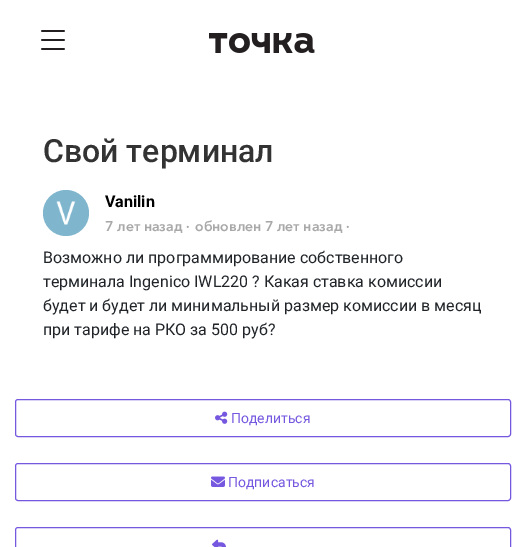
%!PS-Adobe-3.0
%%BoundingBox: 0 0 526 547
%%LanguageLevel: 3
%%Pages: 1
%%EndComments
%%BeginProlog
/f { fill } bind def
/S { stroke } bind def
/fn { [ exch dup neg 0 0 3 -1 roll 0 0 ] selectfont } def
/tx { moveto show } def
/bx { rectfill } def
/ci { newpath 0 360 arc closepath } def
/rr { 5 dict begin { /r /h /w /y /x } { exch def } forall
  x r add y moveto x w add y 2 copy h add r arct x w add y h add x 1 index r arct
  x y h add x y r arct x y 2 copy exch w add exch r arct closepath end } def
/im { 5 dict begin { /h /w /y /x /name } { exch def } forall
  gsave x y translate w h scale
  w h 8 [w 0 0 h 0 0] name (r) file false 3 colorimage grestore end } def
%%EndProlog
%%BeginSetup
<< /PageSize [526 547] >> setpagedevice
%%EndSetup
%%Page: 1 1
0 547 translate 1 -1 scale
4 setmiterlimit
1 setgray
0 0 526 547 bx
(image0.raw) 41 30 24 20 im
(image1.raw) 209 33 106 20 im
/Roboto-Medium 32 fn
0.2 setgray
(Свой терминал) 43 162 tx
0.498 0.714 0.808 setrgbcolor
66 213 23 ci f
(image2.raw) 56 201 20 24 im
/Roboto-Bold 16 fn
0 setgray
(Vanilin) 105 207 tx
/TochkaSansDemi-Bold 14 fn
0.659 setgray
(7 лет назад) 105 231 tx
(·) 186 231 tx
(обновлен 7 лет назад) 195 231 tx
(·) 346 231 tx
/Roboto-Regular 16 fn
0.129 0.145 0.161 setrgbcolor
(Возможно ли программирование собственного) 43 263 tx
(терминала Ingenico IWL220 ? Какая ставка комиссии) 43 287 tx
(будет и будет ли минимальный размер комиссии в месяц) 43 311 tx
(при тарифе на РКО за 500 руб?) 43 335 tx
0.463 0.345 0.878 setrgbcolor
15.5 399.5 495 37 2.5 rr S
(image3.raw) 215 411 13 13 im
/Roboto-Regular 14 fn
(Поделиться) 231 423 tx
15.5 463.5 495 37 2.5 rr S
(image4.raw) 211 476 14 11 im
(Подписаться) 228 487 tx
15.5 527.5 495 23 2.5 rr S
(image5.raw) 212 539 14 8 im
showpage
%%EOF
